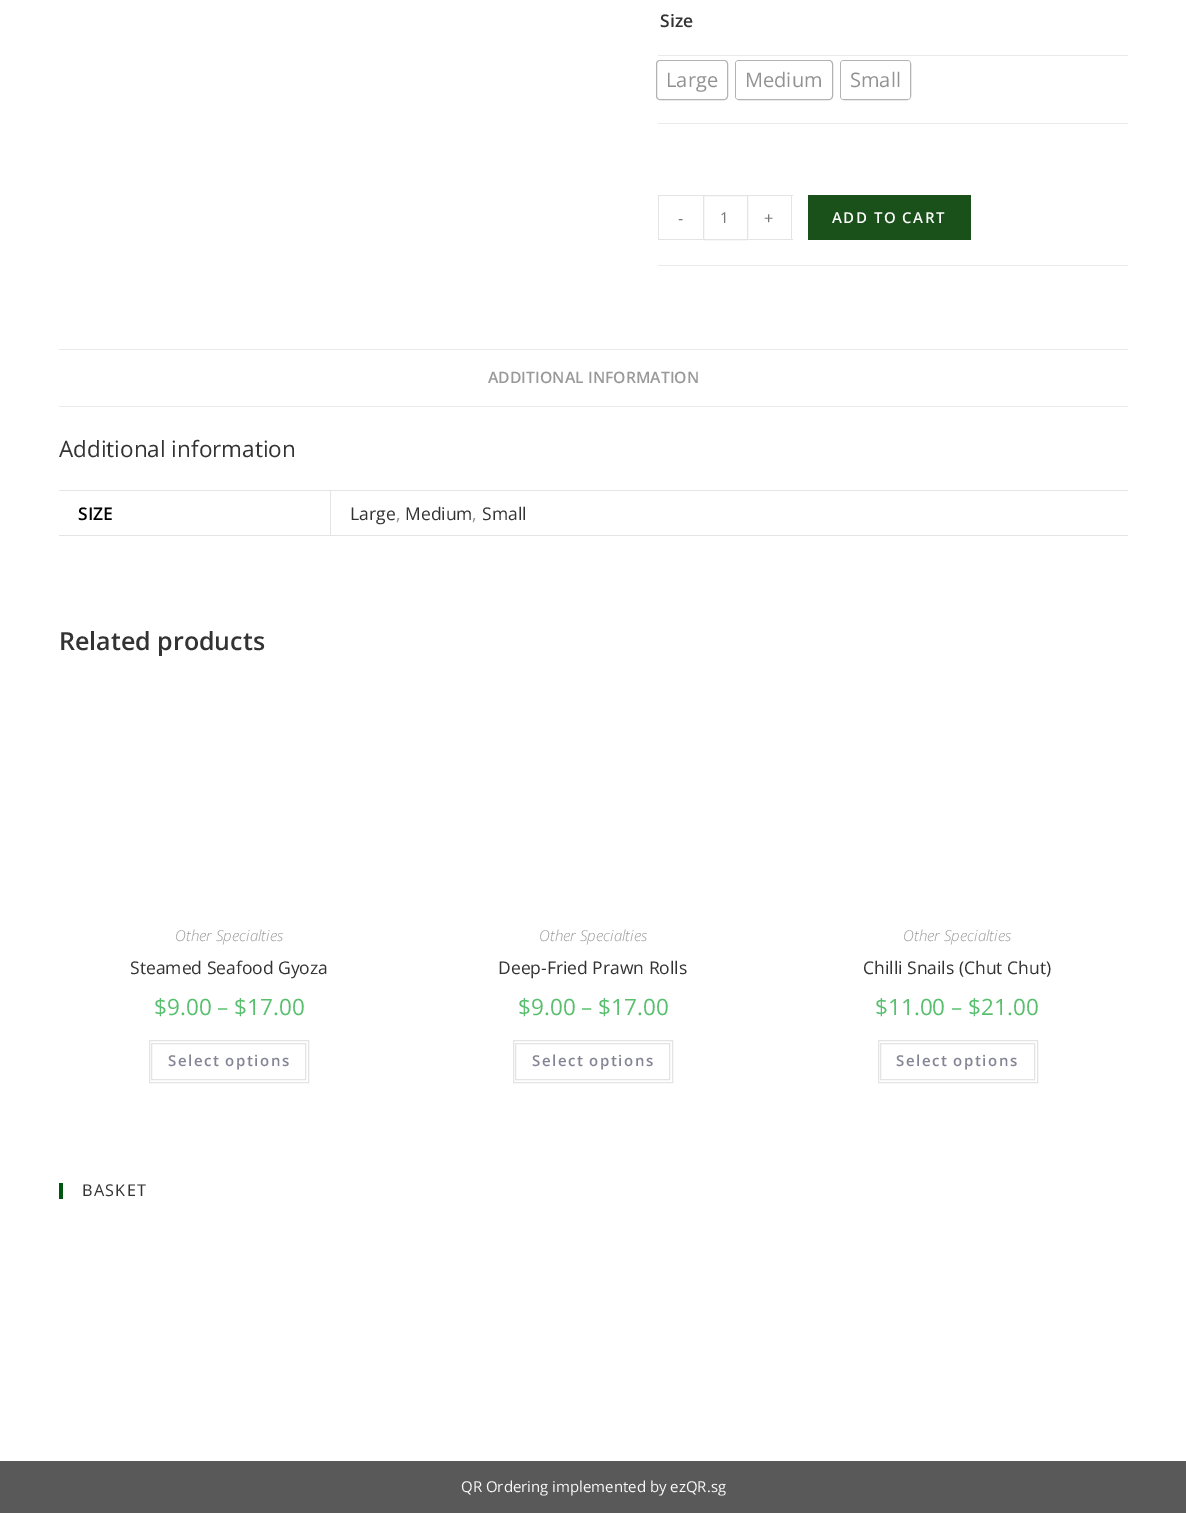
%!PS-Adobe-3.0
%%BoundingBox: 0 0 1186 1513
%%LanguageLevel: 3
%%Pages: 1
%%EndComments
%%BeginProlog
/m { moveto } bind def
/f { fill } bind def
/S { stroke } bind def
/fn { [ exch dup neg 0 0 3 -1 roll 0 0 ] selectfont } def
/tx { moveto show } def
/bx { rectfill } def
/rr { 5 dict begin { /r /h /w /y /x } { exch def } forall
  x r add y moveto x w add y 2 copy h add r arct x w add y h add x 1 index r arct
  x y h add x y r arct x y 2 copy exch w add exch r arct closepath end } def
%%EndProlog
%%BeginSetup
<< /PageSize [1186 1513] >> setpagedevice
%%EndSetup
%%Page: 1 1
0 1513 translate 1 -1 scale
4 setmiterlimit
1 setgray
0 0 1186 1513 bx
0.918 setgray
658 265 470 1 bx
0.914 setgray
658 55 470 1 bx
/OpenSans-SemiBold 17.5 fn
0.2 setgray
(Size) 660 27 tx
0.914 setgray
658 123 470 1 bx
0.702 setgray
656.5 60.5 71 39 3.5 rr S
1 setgray
658 61 68 38 2.5 rr f
/OpenSans-Regular 20 fn
0.573 setgray
(Large) 666 87 tx
0.702 setgray
735.5 60.5 97 39 3.5 rr S
1 setgray
736 61 95 38 2.5 rr f
0.573 setgray
(Medium) 745 87 tx
0.702 setgray
840.5 60.5 70 39 3.5 rr S
1 setgray
841 61 69 38 2.5 rr f
0.573 setgray
(Small) 850 87 tx
0.894 setgray
658 195 45 1 bx
658 239 45 1 bx
658 195 1 45 bx
/OpenSans-Regular 16.25 fn
0.467 setgray
(-) 678 224 tx
0.894 setgray
703.5 195.5 44 44 rectstroke
/OpenSans-Regular 15 fn
0.467 setgray
(1) 720 223 tx
0.894 setgray
748 195 45 1 bx
791 195 1 45 bx
748 239 45 1 bx
/OpenSans-Regular 16.25 fn
0.467 setgray
(+) 764 224 tx
0.102 0.318 0.102 setrgbcolor
808 195 163 45 bx
/OpenSans-SemiBold 15 fn
1 setgray
832 223 m 1.5 0 (ADD TO CART) ashow
0.918 setgray
59 349 1069 1 bx
59 406 1069 1 bx
/OpenSans-SemiBold 15.75 fn
0.6 setgray
(ADDITIONAL INFORMATION) 488 383 tx
/OpenSans-Regular 22.5 fn
0.2 setgray
(Additional information) 59 457 tx
0.894 setgray
59 490 1069 1 bx
330 535 798 1 bx
330 490 1 46 bx
59 535 272 1 bx
/OpenSans-SemiBold 17.5 fn
0 setgray
(SIZE) 78 520 tx
/OpenSans-Regular 17.5 fn
0.2 setgray
(Large) 350 520 tx
0.573 setgray
(,) 396 520 tx
0.2 setgray
(Medium) 405 520 tx
0.573 setgray
(,) 472 520 tx
0.2 setgray
(Small) 482 520 tx
/OpenSans-SemiBold 25 fn
(Related products) 59 650 tx
/OpenSans-LightItalic 15 fn
0.6 setgray
(Other Specialties) 175 941 tx
/OpenSans-Regular 17.5 fn
0.2 setgray
(Steamed Seafood Gyoza) 130 974 tx
/OpenSans-Regular 22.5 fn
0.341 0.749 0.427 setrgbcolor
($9.00 – $17.00) 154 1015 tx
0.894 setgray
149.5 1040.5 159 42 rectstroke
151.5 1043.5 154 36 rectstroke
/OpenSans-SemiBold 15 fn
0.518 0.518 0.58 setrgbcolor
168 1066 m 1.5 0 (Select options) ashow
/OpenSans-LightItalic 15 fn
0.6 setgray
(Other Specialties) 539 941 tx
/OpenSans-Regular 17.5 fn
0.2 setgray
(Deep-Fried Prawn Rolls) 498 974 tx
/OpenSans-Regular 22.5 fn
0.341 0.749 0.427 setrgbcolor
($9.00 – $17.00) 518 1015 tx
0.894 setgray
513.5 1040.5 159 42 rectstroke
515.5 1043.5 154 36 rectstroke
/OpenSans-SemiBold 15 fn
0.518 0.518 0.58 setrgbcolor
532 1066 m 1.5 0 (Select options) ashow
/OpenSans-LightItalic 15 fn
0.6 setgray
(Other Specialties) 903 941 tx
/OpenSans-Regular 17.5 fn
0.2 setgray
(Chilli Snails \(Chut Chut\)) 863 974 tx
/OpenSans-Regular 22.5 fn
0.341 0.749 0.427 setrgbcolor
($11.00 – $21.00) 875 1015 tx
0.894 setgray
878.5 1040.5 159 42 rectstroke
880.5 1043.5 154 36 rectstroke
/OpenSans-SemiBold 15 fn
0.518 0.518 0.58 setrgbcolor
896 1066 m 1.5 0 (Select options) ashow
0 0.337 0.055 setrgbcolor
59 1183 4 16 bx
/OpenSans-Regular 16.25 fn
0.2 setgray
82 1196 m 1.25 0 (BASKET) ashow
0.349 setgray
0 1461 1186 52 bx
/OpenSans-Regular 15 fn
0.976 setgray
(QR Ordering implemented by ezQR.sg) 461 1492 tx
showpage
%%EOF
